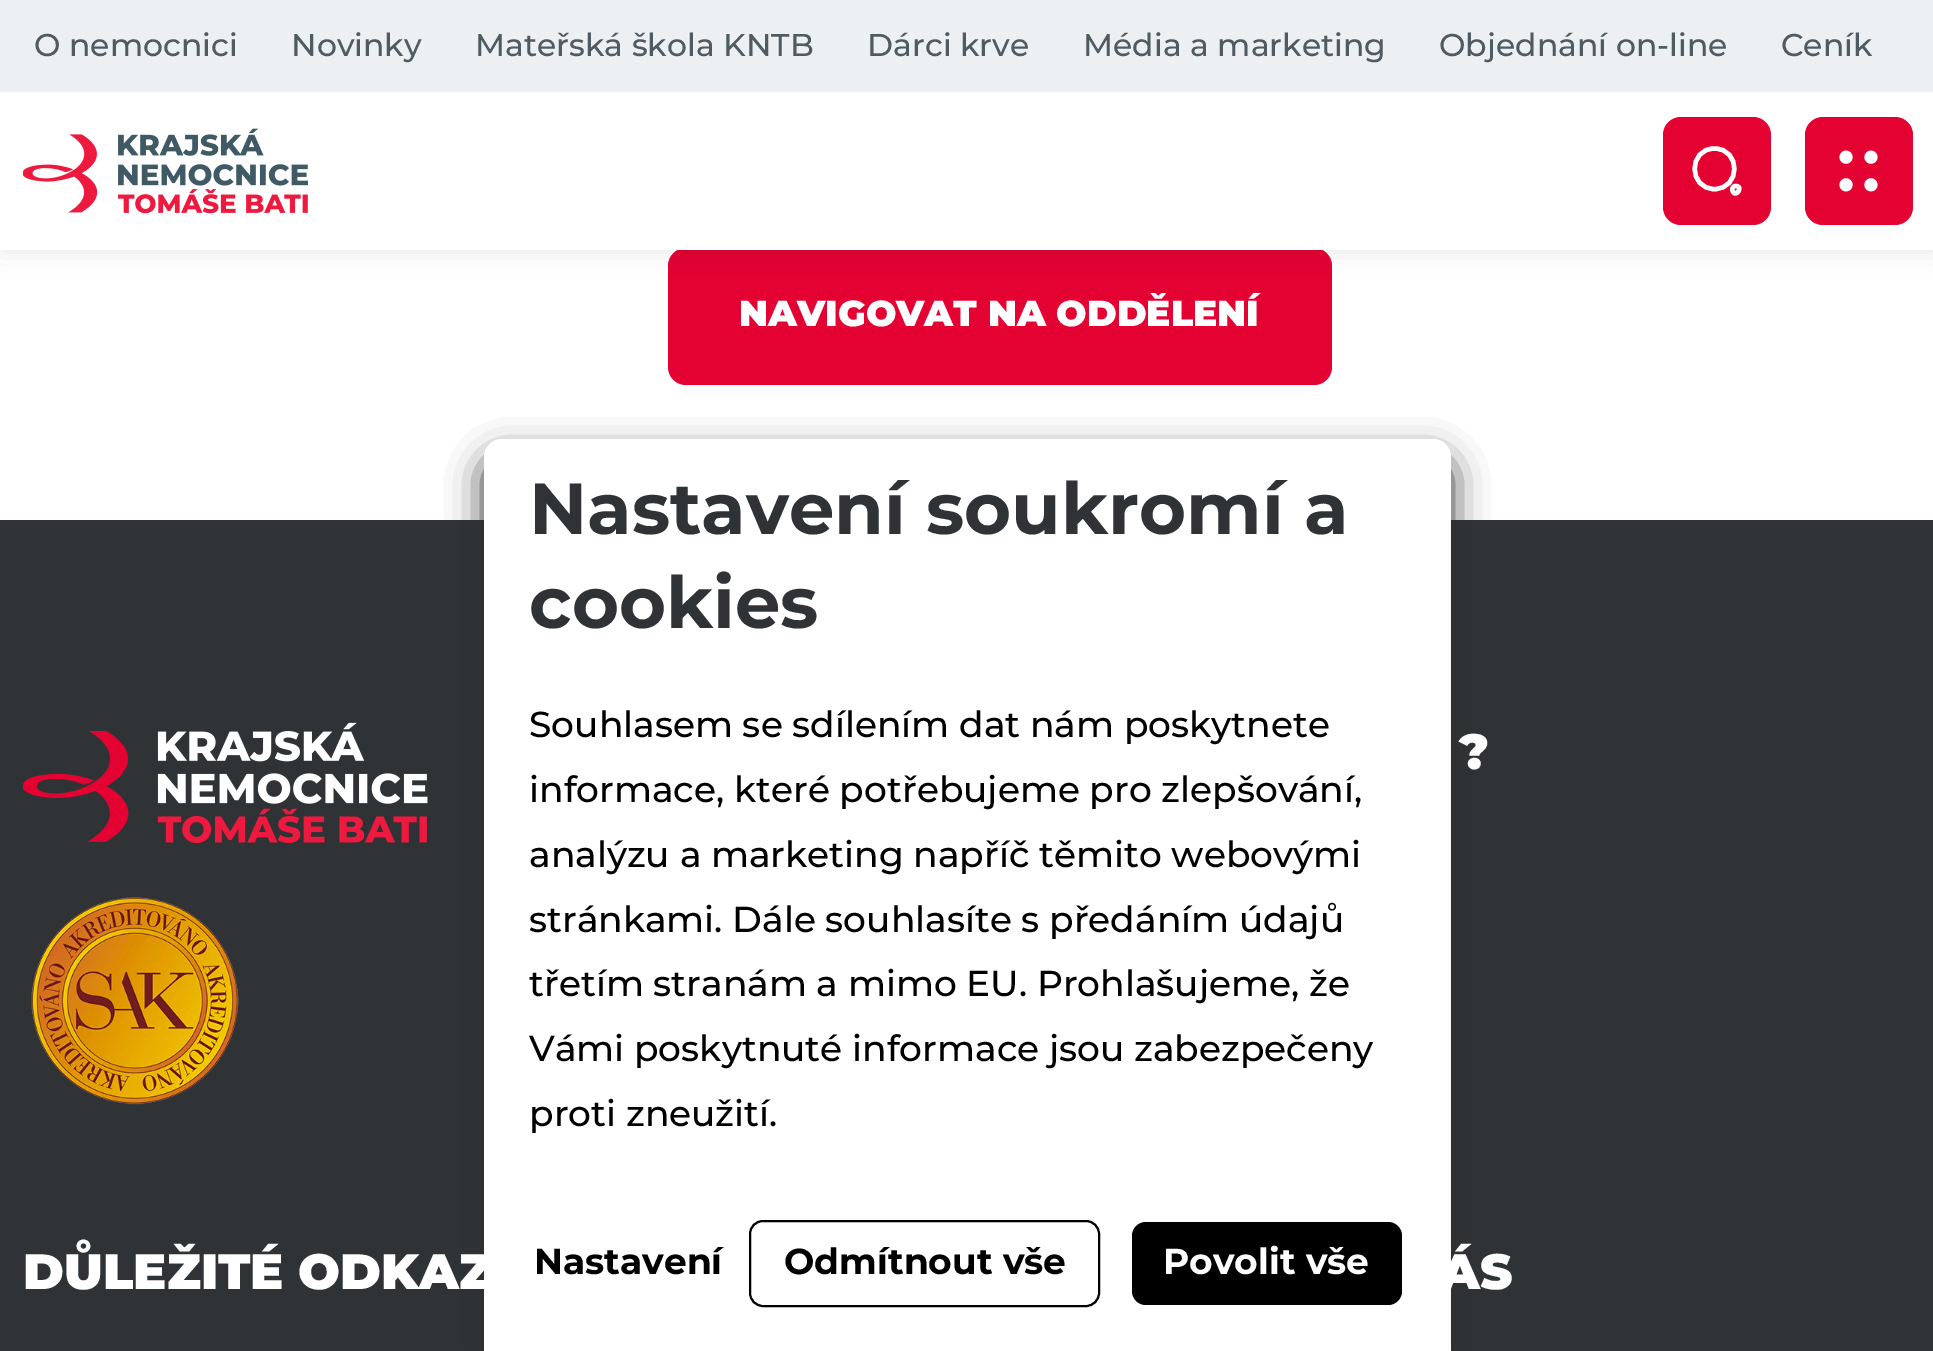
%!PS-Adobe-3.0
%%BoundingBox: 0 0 1933 1351
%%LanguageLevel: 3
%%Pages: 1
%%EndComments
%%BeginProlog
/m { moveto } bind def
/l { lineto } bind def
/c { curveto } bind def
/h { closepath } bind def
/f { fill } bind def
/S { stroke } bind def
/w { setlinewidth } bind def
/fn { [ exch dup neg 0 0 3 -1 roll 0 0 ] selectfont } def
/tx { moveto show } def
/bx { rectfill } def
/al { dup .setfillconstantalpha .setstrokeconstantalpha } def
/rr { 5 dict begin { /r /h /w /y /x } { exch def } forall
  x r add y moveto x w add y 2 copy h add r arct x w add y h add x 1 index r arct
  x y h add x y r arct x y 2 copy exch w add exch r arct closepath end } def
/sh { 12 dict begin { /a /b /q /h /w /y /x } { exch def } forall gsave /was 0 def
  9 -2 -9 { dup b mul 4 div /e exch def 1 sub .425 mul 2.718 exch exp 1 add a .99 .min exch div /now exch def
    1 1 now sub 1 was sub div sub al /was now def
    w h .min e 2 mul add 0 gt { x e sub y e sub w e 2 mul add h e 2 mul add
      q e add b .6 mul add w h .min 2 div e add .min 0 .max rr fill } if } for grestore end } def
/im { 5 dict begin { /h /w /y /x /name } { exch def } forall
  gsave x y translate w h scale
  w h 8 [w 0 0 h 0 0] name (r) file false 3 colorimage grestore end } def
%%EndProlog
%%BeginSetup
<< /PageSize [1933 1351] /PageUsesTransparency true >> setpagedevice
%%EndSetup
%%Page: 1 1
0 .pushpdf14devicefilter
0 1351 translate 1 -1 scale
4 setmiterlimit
1 setgray
0 0 1933 1351 bx
0.894 0.008 0.196 setrgbcolor
668 248 664 137 18 rr f
0 setgray
0 0 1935 250 0 13.5 0.1 sh
1 setgray
0 92 1933 158 bx
0.929 0.941 0.949 setrgbcolor
0 0 1933 92 bx
/Montserrat-Medium 31.5 fn
0.31 0.353 0.38 setrgbcolor
(O nemocnici) 34 56 tx
(Novinky) 291 56 tx
(Mateřská škola KNTB) 475 56 tx
(Dárci krve) 867 56 tx
(Média a marketing) 1083 56 tx
(Objednání on-line) 1439 56 tx
(Ceník) 1781 56 tx
(image0.raw) 23 128 285 86 im
0.894 0.008 0.196 setrgbcolor
1663 117 108 108 18 rr f
1 setgray
4.5 w
1 setlinecap
1 setlinejoin
1714.5 189 m 1741 189 1741 148.5 1714.5 148.5 c 1688 148.5 1688 189 1714.5 189 c h 1732.5 190.5 m 1734.5 197 1740.5 191 1739 187.5 c 1737 184.5 1731 186 1732.5 190.5 c h S
0.894 0.008 0.196 setrgbcolor
1805 117 108 108 18 rr f
(image1.raw) 1839 150 39 42 im
/Montserrat-Black 36 fn
1 setgray
(NAVIGOVAT NA ODDĚLENÍ) 739 326 tx
0.184 0.2 0.208 setrgbcolor
0 520 1933 831 bx
0.176 setgray
484 457 967 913 18 18 1 sh
1 setgray
502 439 m 1433 439 l 1443 439 1451 447 1451 457 c 1451 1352 l 484 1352 l 484 457 l 484 447 492 439 502 439 c h f
/Montserrat-Bold 72 fn
0.184 0.2 0.208 setrgbcolor
(Nastavení soukromí a) 529 534 tx
(cookies) 529 628 tx
/Montserrat-Medium 36 fn
0 setgray
(Souhlasem se sdílením dat nám poskytnete) 529 737 tx
(informace, které potřebujeme pro zlepšování,) 529 802 tx
(analýzu a marketing napříč těmito webovými) 529 867 tx
(stránkami. Dále souhlasíte s předáním údajů) 529 932 tx
(třetím stranám a mimo EU. Prohlašujeme, že) 529 996 tx
(Vámi poskytnuté informace jsou zabezpečeny) 529 1061 tx
(proti zneužití.) 529 1126 tx
/Montserrat-Bold 36 fn
(Nastavení) 534 1274 tx
2 w
0 setlinecap
0 setlinejoin
750 1221 349 85 13 rr S
(Odmítnout vše) 784 1274 tx
1132 1222 270 83 14 rr f
1 setgray
(Povolit vše) 1163 1274 tx
(image2.raw) 23 722 405 121 im
(image3.raw) 31 897 208 208 im
/Montserrat-Black 49.5 fn
(?) 1459 769 tx
(DŮLEŽITÉ ODKAZ) 23 1289 tx
(ÁS) 1440 1289 tx
.poppdf14devicefilter showpage
%%EOF
